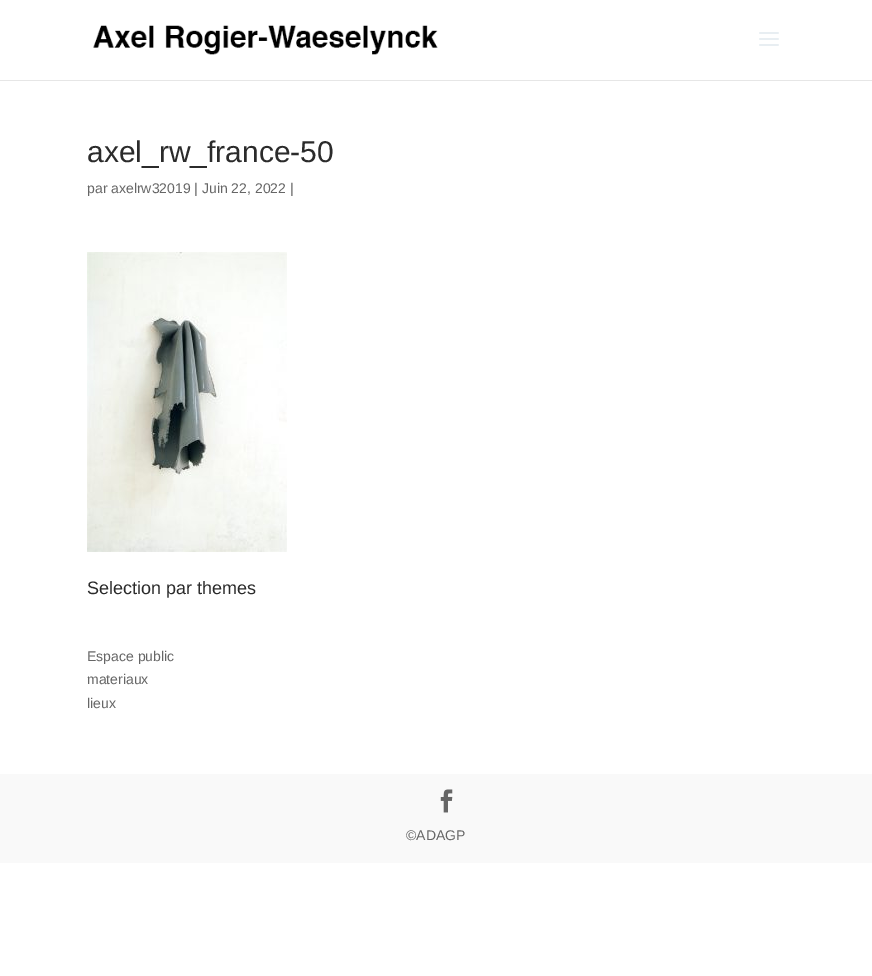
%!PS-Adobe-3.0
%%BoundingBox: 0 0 872 976
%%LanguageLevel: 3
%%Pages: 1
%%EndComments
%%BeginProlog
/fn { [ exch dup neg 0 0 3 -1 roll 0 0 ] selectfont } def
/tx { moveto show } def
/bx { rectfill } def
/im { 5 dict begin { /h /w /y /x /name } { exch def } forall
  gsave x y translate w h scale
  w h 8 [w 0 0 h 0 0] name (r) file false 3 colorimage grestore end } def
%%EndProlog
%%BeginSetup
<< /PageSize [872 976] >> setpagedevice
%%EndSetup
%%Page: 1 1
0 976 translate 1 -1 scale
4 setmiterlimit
1 setgray
0 0 872 976 bx
0.902 setgray
0 80 872 1 bx
(image0.raw) 93 25 345 30 im
(image1.raw) 759 32 20 14 im
/LiberationSans-Regular 30 fn
0.169 setgray
(axel_rw_france-50) 87 162 tx
/LiberationSans-Regular 14 fn
0.4 setgray
(par axelrw32019 | Juin 22, 2022 |) 87 193 tx
(image2.raw) 87 252 200 300 im
/LiberationSans-Regular 18 fn
0.169 setgray
(Selection par themes) 87 594 tx
/LiberationSans-Regular 14 fn
0.4 setgray
(Espace public) 87 661 tx
(materiaux) 87 684 tx
(lieux) 87 708 tx
0.976 setgray
0 774 872 89 bx
(image3.raw) 440 789 13 24 im
0.4 setgray
(©ADAGP) 406 840 tx
showpage
%%EOF
